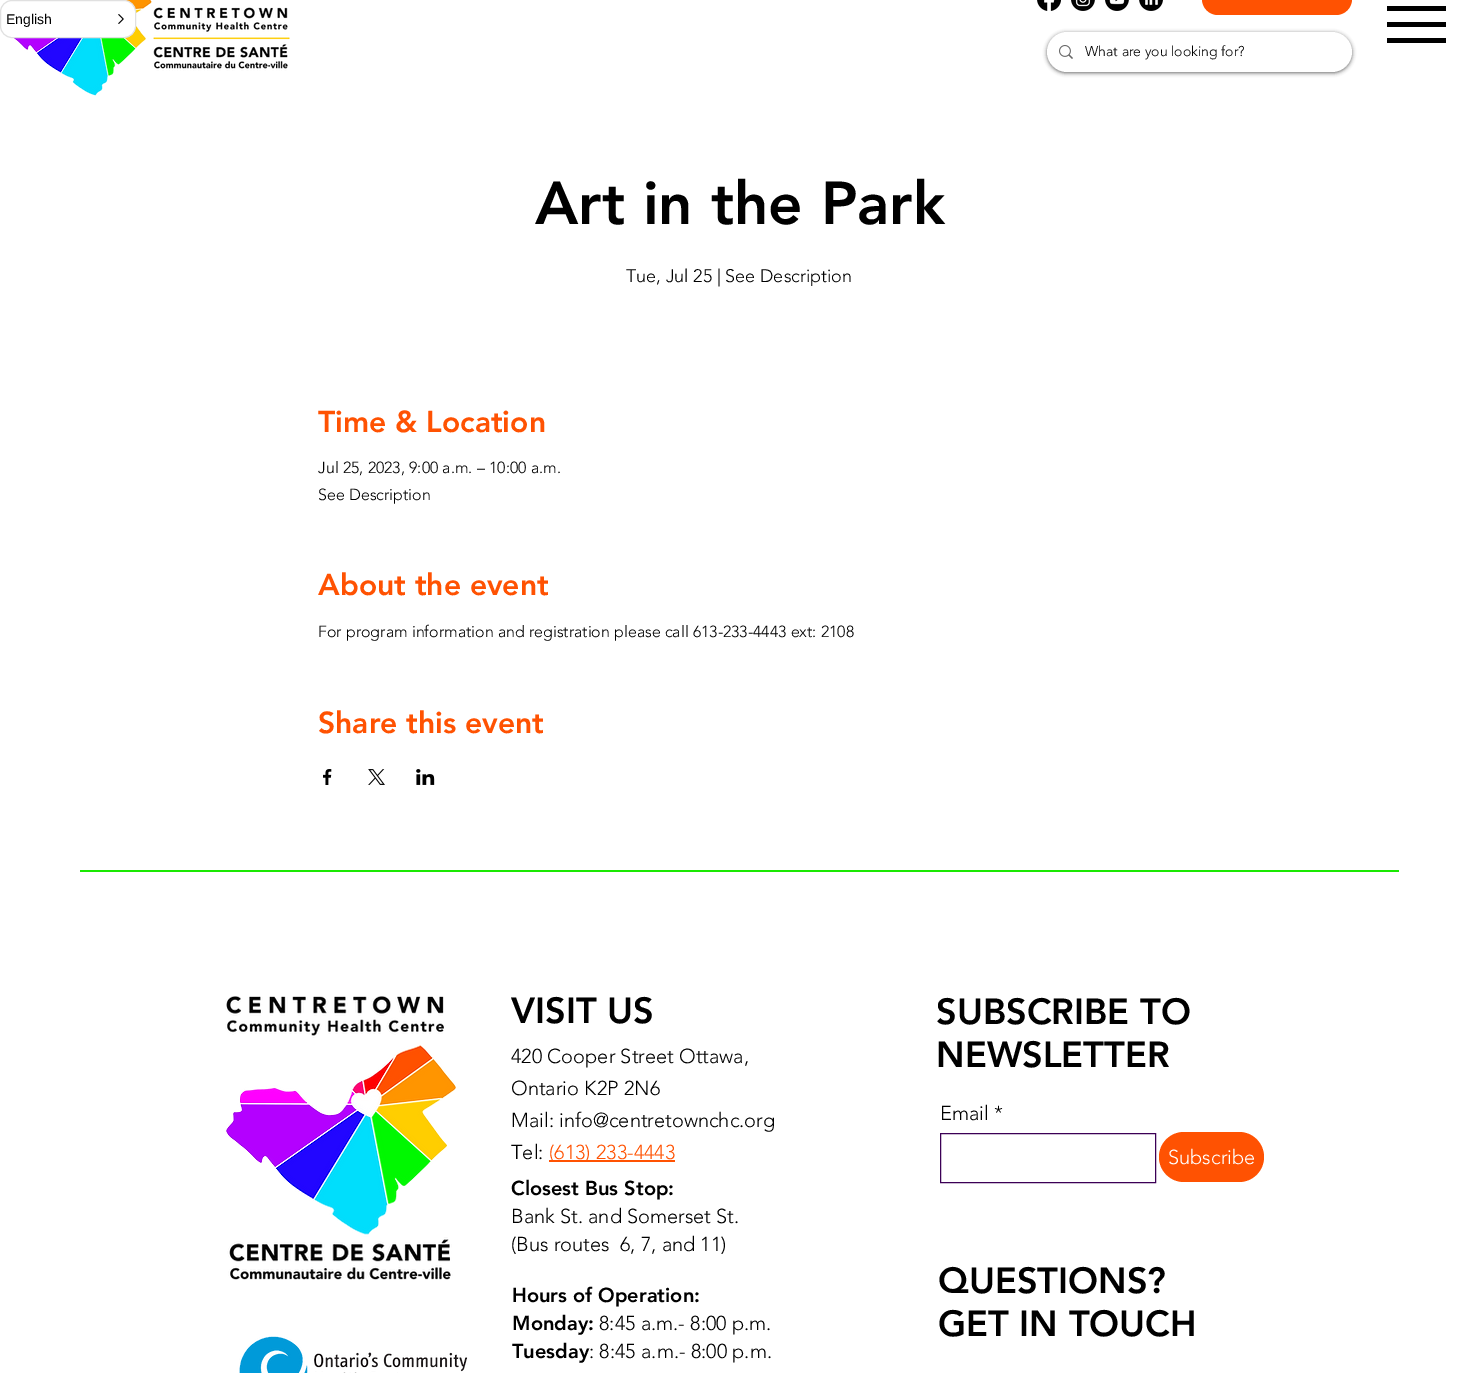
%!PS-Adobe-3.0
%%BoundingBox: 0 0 1479 1373
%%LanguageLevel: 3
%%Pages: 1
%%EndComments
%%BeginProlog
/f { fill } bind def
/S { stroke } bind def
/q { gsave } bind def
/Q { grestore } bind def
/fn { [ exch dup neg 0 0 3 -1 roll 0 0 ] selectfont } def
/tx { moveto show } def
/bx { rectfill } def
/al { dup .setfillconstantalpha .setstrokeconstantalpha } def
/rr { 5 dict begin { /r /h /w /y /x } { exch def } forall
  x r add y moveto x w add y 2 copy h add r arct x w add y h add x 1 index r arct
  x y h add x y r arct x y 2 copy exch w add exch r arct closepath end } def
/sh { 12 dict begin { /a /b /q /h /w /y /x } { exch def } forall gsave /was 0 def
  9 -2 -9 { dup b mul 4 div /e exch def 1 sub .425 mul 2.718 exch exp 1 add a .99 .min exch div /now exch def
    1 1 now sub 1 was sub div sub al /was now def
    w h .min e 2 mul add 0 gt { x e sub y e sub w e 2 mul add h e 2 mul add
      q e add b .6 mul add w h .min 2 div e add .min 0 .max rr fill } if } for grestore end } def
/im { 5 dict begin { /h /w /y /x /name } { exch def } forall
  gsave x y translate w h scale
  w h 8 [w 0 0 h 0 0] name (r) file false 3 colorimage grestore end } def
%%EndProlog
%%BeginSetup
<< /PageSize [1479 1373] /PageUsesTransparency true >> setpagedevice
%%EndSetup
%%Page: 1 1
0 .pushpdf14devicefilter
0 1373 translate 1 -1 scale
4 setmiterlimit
1 setgray
0 0 1479 1373 bx
(image1.raw) 11 0 279 96 im
0.5 0.5 135 37 11.5 rr q f Q
0.878 setgray
S
/LiberationSans-Regular 14 fn
0 setgray
(English) 6 24 tx
(image0.raw) 118 14 6 10 im
(image2.raw) 1037 0 24 11 im
(image3.raw) 1071 0 24 11 im
(image4.raw) 1105 0 24 11 im
(image5.raw) 1139 0 24 11 im
1 0.322 0.008 setrgbcolor
1202 -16 150 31 16 rr f
0 setgray
1387 38 59 5 bx
1387 6 59 5 bx
1387 22 59 5 bx
1047 33 305 40 20 2 0.6 sh
1 setgray
1047 32 305 40 20 rr f
(image6.raw) 1059 45 14 14 im
/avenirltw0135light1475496-Light 14 fn
0 setgray
(What are you looking for?) 1085 56 tx
/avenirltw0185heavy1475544-Black 60 fn
(Art in the Park) 535 224 tx
/avenirltw0135light1475496-Light 18 fn
(Tue, Jul 25 | See Description) 626 282 tx
/avenirltw0185heavy1475544-Black 30 fn
1 0.322 0.008 setrgbcolor
(Time & Location) 318 432 tx
/avenirltw0135light1475496-Light 16 fn
0 setgray
(Jul 25, 2023, 9:00 a.m. – 10:00 a.m.) 318 473 tx
(See Description) 318 500 tx
/avenirltw0185heavy1475544-Black 30 fn
1 0.322 0.008 setrgbcolor
(About the event) 318 595 tx
/avenirltw0135light1475496-Light 16 fn
0 setgray
(For program information and registration please call 613-233-4443 ext: 2108) 318 637 tx
/avenirltw0185heavy1475544-Black 30 fn
1 0.322 0.008 setrgbcolor
(Share this event) 318 733 tx
(image7.raw) 323 769 9 16 im
(image8.raw) 368 769 17 16 im
(image9.raw) 416 769 19 16 im
0.102 0.914 0.008 setrgbcolor
80 870 1319 2 bx
(image10.raw) 225 996 231 284 im
(image11.raw) 239 1336 229 37 im
/avenirltw0185heavy1475544-Black 36 fn
0 setgray
(VISIT US) 511 1023 tx
/avenirltw0135light1475496-Light 20 fn
(420 Cooper Street Ottawa,) 511 1063 tx
(Ontario K2P 2N6) 511 1095 tx
(Mail: info@centretownchc.org) 511 1127 tx
(Tel:) 511 1159 tx
1 0.322 0.008 setrgbcolor
549 1160 126 2 bx
(\(613\) 233-4443) 549 1159 tx
/avenirltw0185heavy1475544-Black 20 fn
0 setgray
(Closest Bus Stop:) 511 1195 tx
/avenirltw0135light1475496-Light 20 fn
(Bank St. and Somerset St.) 511 1223 tx
(\(Bus routes  6, 7, and 11\)) 511 1251 tx
/avenirltw0185heavy1475544-Black 20 fn
(Hours of Operation:) 512 1302 tx
(Monday:) 512 1330 tx
/avenirltw0135light1475496-Light 20 fn
(8:45 a.m.- 8:00 p.m.) 599 1330 tx
/avenirltw0185heavy1475544-Black 20 fn
(Tuesday) 512 1358 tx
/avenirltw0135light1475496-Light 20 fn
(: 8:45 a.m.- 8:00 p.m.) 589 1358 tx
/avenirltw0185heavy1475544-Black 36 fn
(SUBSCRIBE TO) 936 1024 tx
(NEWSLETTER) 936 1067 tx
/avenirltw0135light1475496-Light 20 fn
(Email *) 940 1120 tx
0.235 0 0.333 setrgbcolor
940.5 1133.5 215 49 rectstroke
1 0.322 0.008 setrgbcolor
1159 1132 105 50 25 rr f
1 setgray
(Subscribe) 1168 1164 tx
/avenirltw0185heavy1475544-Black 36 fn
0 setgray
(QUESTIONS?) 938 1293 tx
(GET IN TOUCH) 938 1336 tx
.poppdf14devicefilter showpage
%%EOF
